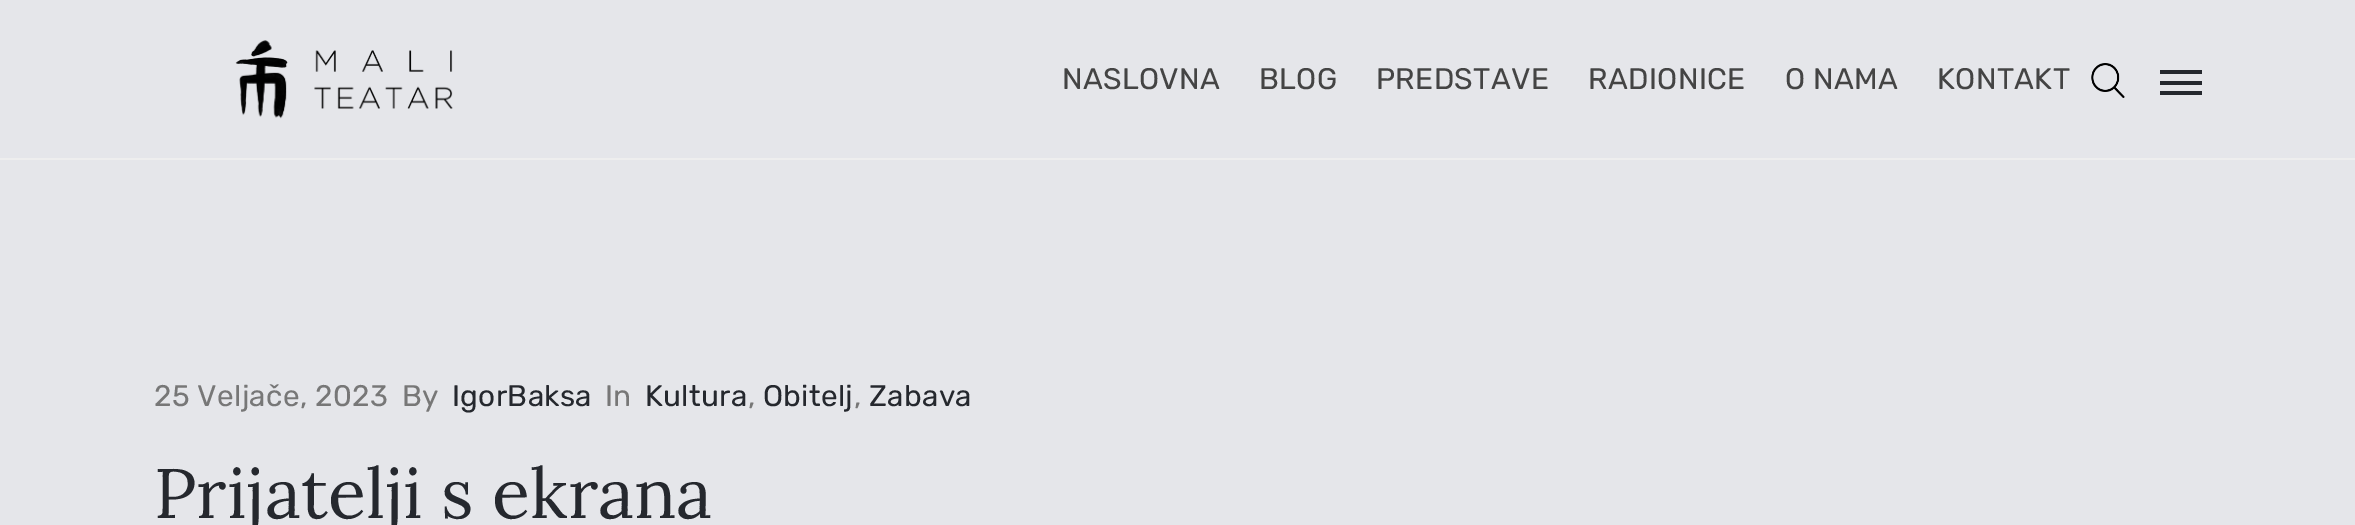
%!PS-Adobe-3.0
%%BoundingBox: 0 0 2355 525
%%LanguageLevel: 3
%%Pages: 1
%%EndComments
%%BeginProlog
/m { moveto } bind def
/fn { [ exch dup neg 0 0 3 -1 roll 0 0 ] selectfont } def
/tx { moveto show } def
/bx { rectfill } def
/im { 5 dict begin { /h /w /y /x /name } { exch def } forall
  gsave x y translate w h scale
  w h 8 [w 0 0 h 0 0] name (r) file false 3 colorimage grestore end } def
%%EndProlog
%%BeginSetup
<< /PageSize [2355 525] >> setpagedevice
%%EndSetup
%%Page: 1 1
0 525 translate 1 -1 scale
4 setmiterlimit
0.898 0.902 0.918 setrgbcolor
0 0 2355 525 bx
0.933 setgray
0 158 2355 2 bx
(image0.raw) 235 40 218 79 im
/Rubik-Regular 29.75 fn
0.267 setgray
1062 89 m 0.3 0 (NASLOVNA) ashow
1259 89 m 0.3 0 (BLOG) ashow
1376 89 m 0.3 0 (PREDSTAVE) ashow
1588 89 m 0.3 0 (RADIONICE) ashow
1785 89 m 0.3 0 (O NAMA) ashow
1937 89 m 0.3 0 (KONTAKT) ashow
(image1.raw) 2091 63 34 35 im
0.145 0.157 0.18 setrgbcolor
2160 70 42 4 bx
2160 81 42 4 bx
2160 91 42 4 bx
0.467 setgray
154 406 m 0.3 0 (25 Veljače, 2023) ashow
402 406 m 0.3 0 (By) ashow
0.145 0.157 0.18 setrgbcolor
452 406 m 0.3 0 (IgorBaksa) ashow
0.467 setgray
605 406 m 0.3 0 (In) ashow
0.145 0.157 0.18 setrgbcolor
645 406 m 0.3 0 (Kultura) ashow
0.467 setgray
748 406 m 0.3 0 (‚) ashow
0.145 0.157 0.18 setrgbcolor
763 406 m 0.3 0 (Obitelj) ashow
0.467 setgray
854 406 m 0.3 0 (‚) ashow
0.145 0.157 0.18 setrgbcolor
869 406 m 0.3 0 (Zabava) ashow
/Lora-Regular 70 fn
(Prijatelji s ekrana) 154 518 tx
showpage
%%EOF
